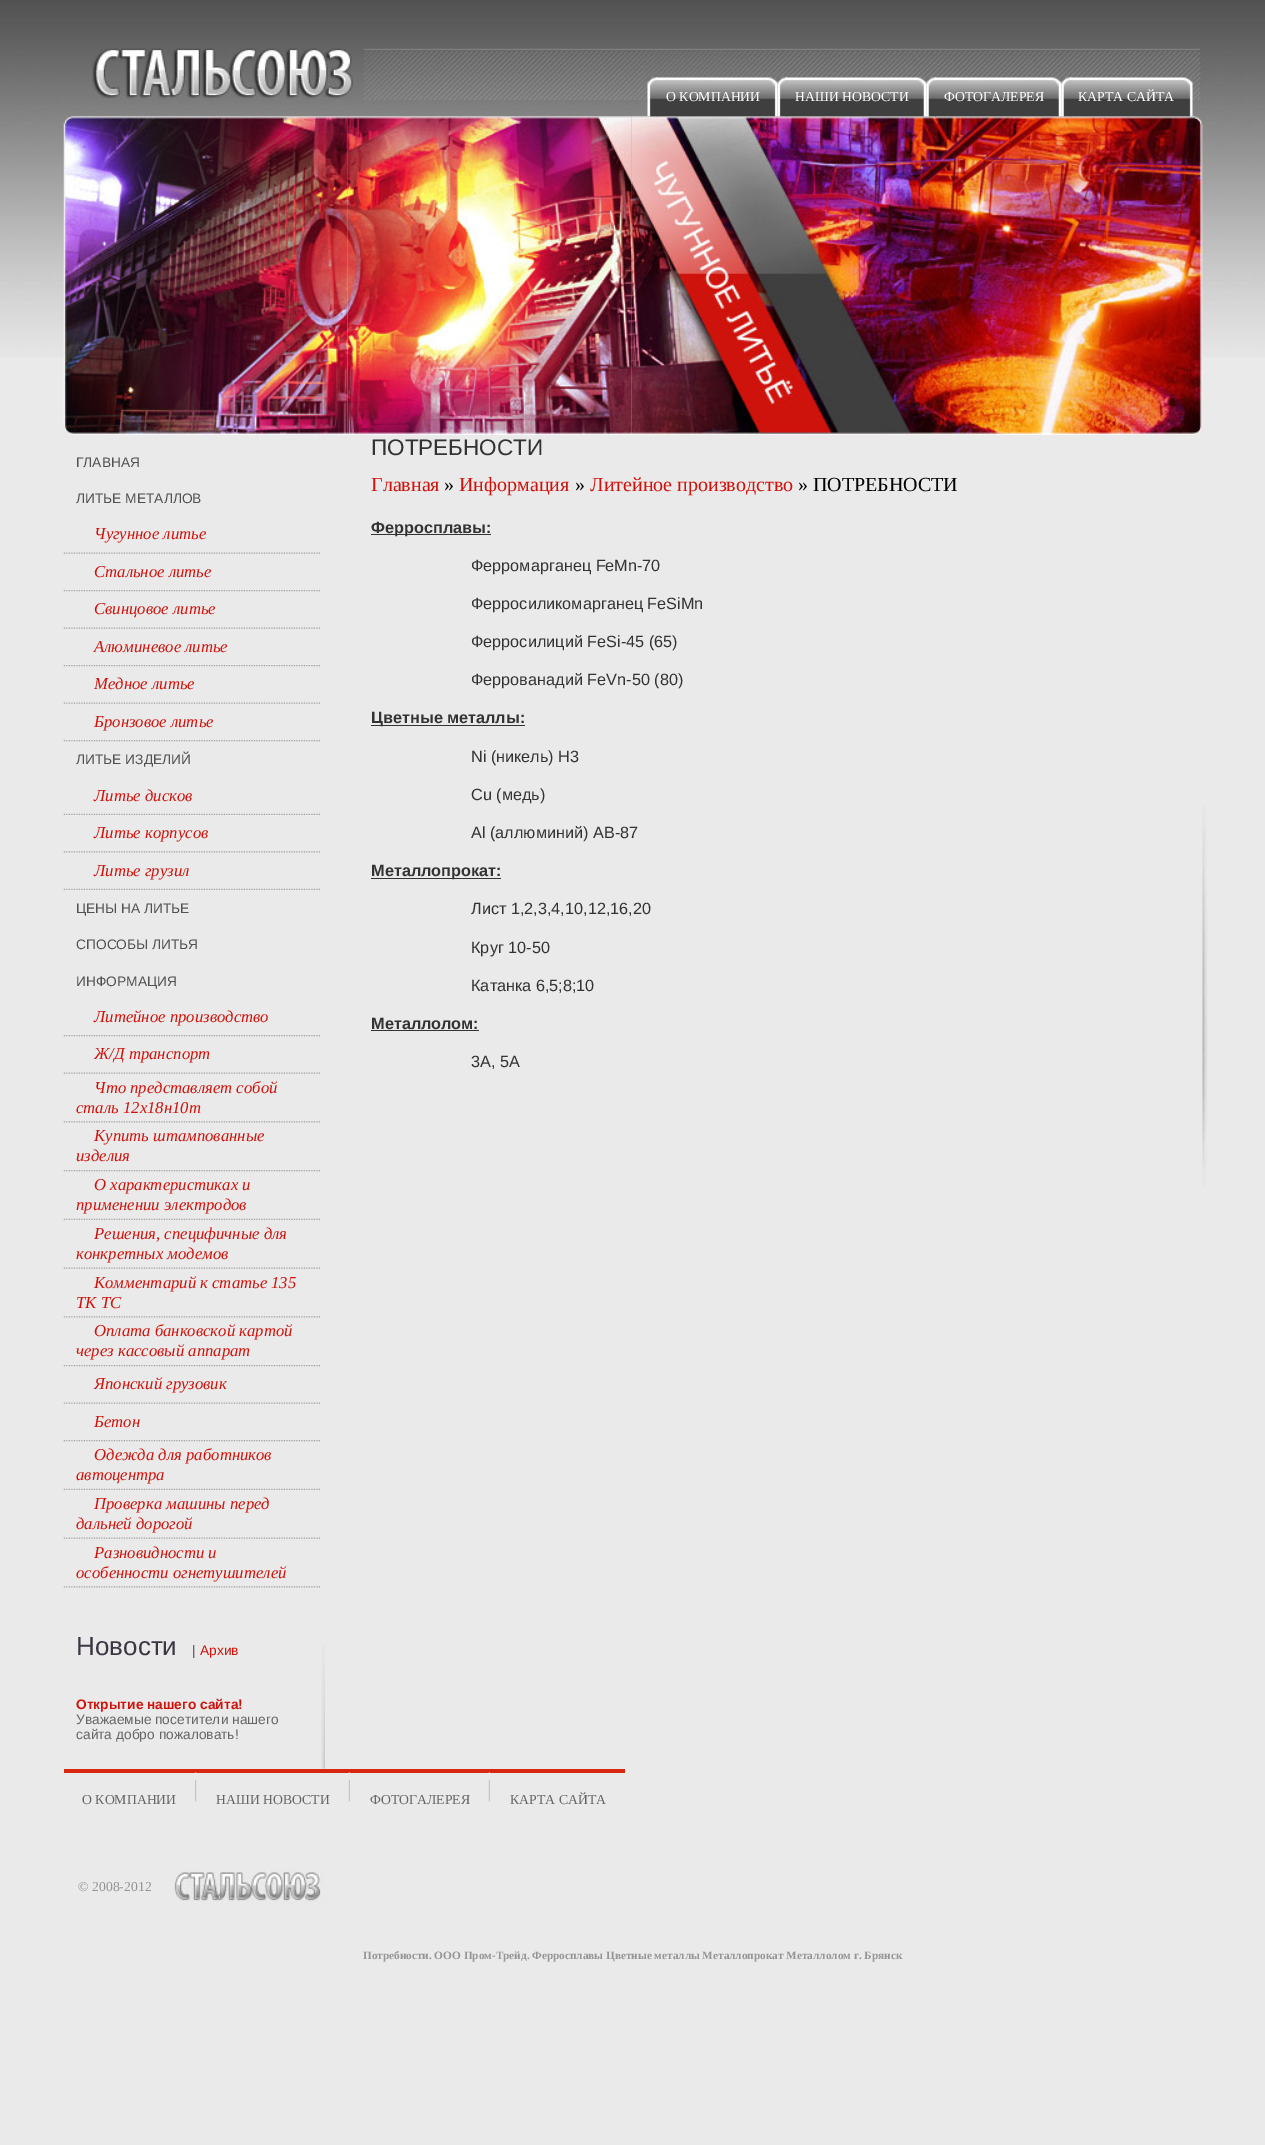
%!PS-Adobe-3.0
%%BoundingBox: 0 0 1265 2145
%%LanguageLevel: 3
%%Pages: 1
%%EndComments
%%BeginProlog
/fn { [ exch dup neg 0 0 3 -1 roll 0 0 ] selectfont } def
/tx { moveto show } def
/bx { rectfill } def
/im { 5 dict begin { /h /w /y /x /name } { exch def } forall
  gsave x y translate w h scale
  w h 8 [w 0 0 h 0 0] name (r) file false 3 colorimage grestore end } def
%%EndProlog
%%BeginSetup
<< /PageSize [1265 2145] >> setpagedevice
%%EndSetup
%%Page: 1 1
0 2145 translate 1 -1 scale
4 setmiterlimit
0.918 setgray
0 0 1265 2145 bx
(image0.raw) 0 0 1265 357 im
(image1.raw) 92 48 1111 52 im
(image10.raw) 63 116 285 319 im
(image11.raw) 347 116 285 319 im
(image12.raw) 631 116 284 319 im
(image2.raw) 647 77 11 40 im
(image3.raw) 656 77 122 40 im
/LiberationSerif-Regular 13.75 fn
1 setgray
(О КОМПАНИИ) 666 101 tx
(image4.raw) 777 77 11 40 im
(image13.raw) 915 116 288 319 im
(image5.raw) 786 77 141 40 im
(НАШИ НОВОСТИ) 795 101 tx
(image6.raw) 926 77 11 40 im
(image7.raw) 935 77 127 40 im
(ФОТОГАЛЕРЕЯ) 944 101 tx
(image8.raw) 1061 77 11 40 im
(image9.raw) 1070 77 123 40 im
(КАРТА САЙТА) 1078 101 tx
/LiberationSans-Regular 13.75 fn
0.318 setgray
(ГЛАВНАЯ) 76 467 tx
(ЛИТЬЕ МЕТАЛЛОВ) 76 503 tx
/LiberationSerif-Italic 16.7 fn
0.812 0.075 0.047 setrgbcolor
(Чугунное литье) 94 539 tx
(image14.raw) 63 552 257 2 im
(Стальное литье) 94 577 tx
(image15.raw) 63 590 257 2 im
(Свинцовое литье) 94 614 tx
(image14.raw) 63 627 257 2 im
(Алюминевое литье) 94 652 tx
(image15.raw) 63 665 257 2 im
(Медное литье) 94 689 tx
(image14.raw) 63 702 257 2 im
(Бронзовое литье) 94 727 tx
(image15.raw) 63 740 257 2 im
/LiberationSans-Regular 13.75 fn
0.318 setgray
(ЛИТЬЕ ИЗДЕЛИЙ) 76 764 tx
/LiberationSerif-Italic 16.7 fn
0.812 0.075 0.047 setrgbcolor
(Литье дисков) 94 801 tx
(image16.raw) 63 813 257 2 im
(Литье корпусов) 94 838 tx
(image17.raw) 63 851 257 2 im
(Литье грузил) 94 876 tx
(image16.raw) 63 888 257 2 im
/LiberationSans-Regular 13.75 fn
0.318 setgray
(ЦЕНЫ НА ЛИТЬЕ) 76 913 tx
(СПОСОБЫ ЛИТЬЯ) 76 949 tx
(ИНФОРМАЦИЯ) 76 986 tx
/LiberationSerif-Italic 16.7 fn
0.812 0.075 0.047 setrgbcolor
(Литейное производство) 94 1022 tx
(image15.raw) 63 1035 257 2 im
(Ж/Д транспорт) 94 1059 tx
(image14.raw) 63 1072 257 2 im
(Что представляет собой) 94 1093 tx
(сталь 12х18н10т) 76 1113 tx
(image17.raw) 63 1121 257 2 im
(Купить штампованные) 94 1141 tx
(изделия) 76 1161 tx
(image15.raw) 63 1170 257 2 im
(О характеристиках и) 94 1190 tx
(применении электродов) 76 1210 tx
(image16.raw) 63 1218 257 2 im
(Решения, специфичные для) 94 1239 tx
(конкретных модемов) 76 1259 tx
(image14.raw) 63 1267 257 2 im
(Комментарий к статье 135) 94 1288 tx
(ТК ТС) 76 1308 tx
(image17.raw) 63 1316 257 2 im
(Оплата банковской картой) 94 1336 tx
(через кассовый аппарат) 76 1356 tx
(image15.raw) 63 1365 257 2 im
(Японский грузовик) 94 1389 tx
(image14.raw) 63 1402 257 2 im
(Бетон) 94 1427 tx
(image15.raw) 63 1440 257 2 im
(Одежда для работников) 94 1460 tx
(автоцентра) 76 1480 tx
(image16.raw) 63 1488 257 2 im
(Проверка машины перед) 94 1509 tx
(дальней дорогой) 76 1529 tx
(image14.raw) 63 1537 257 2 im
(Разновидности и) 94 1558 tx
(особенности огнетушителей) 76 1578 tx
(image17.raw) 63 1586 257 2 im
(image18.raw) 321 1644 4 125 im
/LiberationSans-Regular 26 fn
0.235 0.208 0.259 setrgbcolor
(Новости) 76 1655 tx
/LiberationSans-Regular 13.75 fn
(|) 192 1655 tx
0.812 0.075 0.047 setrgbcolor
(Архив) 200 1655 tx
/LiberationSans-Bold 13.75 fn
(Открытие нашего сайта!) 76 1709 tx
/LiberationSans-Regular 13.75 fn
0.4 setgray
(Уважаемые посетители нашего) 76 1724 tx
(сайта добро пожаловать!) 76 1739 tx
/LiberationSans-Regular 22.5 fn
0.2 setgray
(ПОТРЕБНОСТИ) 371 455 tx
/LiberationSerif-Regular 20 fn
0.812 0.075 0.047 setrgbcolor
(Главная) 371 491 tx
0 setgray
(») 444 491 tx
0.812 0.075 0.047 setrgbcolor
(Информация) 459 491 tx
0 setgray
(») 575 491 tx
0.812 0.075 0.047 setrgbcolor
(Литейное производство) 590 491 tx
0 setgray
(» ПОТРЕБНОСТИ) 798 491 tx
0.2 setgray
371 534 120 1 bx
/LiberationSans-Bold 16.25 fn
(Ферросплавы:) 371 533 tx
/LiberationSans-Regular 16.25 fn
(Ферромарганец FeMn-70) 471 571 tx
(Ферросиликомарганец FeSiMn) 471 609 tx
(Ферросилиций FeSi-45 \(65\)) 471 647 tx
(Феррованадий FeVn-50 \(80\)) 471 685 tx
371 725 154 1 bx
/LiberationSans-Bold 16.25 fn
(Цветные металлы:) 371 723 tx
/LiberationSans-Regular 16.25 fn
(Ni \(никель\) H3) 471 762 tx
(Cu \(медь\)) 471 800 tx
(Al \(аллюминий\) AB-87) 471 838 tx
371 878 130 1 bx
/LiberationSans-Bold 16.25 fn
(Металлопрокат:) 371 876 tx
/LiberationSans-Regular 16.25 fn
(Лист 1,2,3,4,10,12,16,20) 471 914 tx
(Круг 10-50) 471 953 tx
(Катанка 6,5;8;10) 471 991 tx
/LiberationSans-Bold 16.25 fn
(Металлолом:) 371 1029 tx
371 1030 108 1 bx
/LiberationSans-Regular 16.25 fn
(3А, 5А) 471 1067 tx
0.843 0.153 0.067 setrgbcolor
64 1769 561 4 bx
/LiberationSerif-Regular 13.75 fn
0.4 setgray
(О КОМПАНИИ) 82 1804 tx
(image19.raw) 195 1772 2 30 im
(НАШИ НОВОСТИ) 216 1804 tx
(image20.raw) 348 1772 2 30 im
(ФОТОГАЛЕРЕЯ) 370 1804 tx
(image20.raw) 488 1772 2 30 im
(КАРТА САЙТА) 510 1804 tx
0.588 0.58 0.588 setrgbcolor
(© 2008-2012) 78 1891 tx
(image21.raw) 174 1868 151 37 im
/LiberationSerif-Bold 11.25 fn
(Потребности. ООО Пром-Трейд. Ферросплавы Цветные металлы Металлопрокат Металлолом г. Брянск) 363 1959 tx
(image22.raw) 1202 806 6 380 im
showpage
%%EOF
